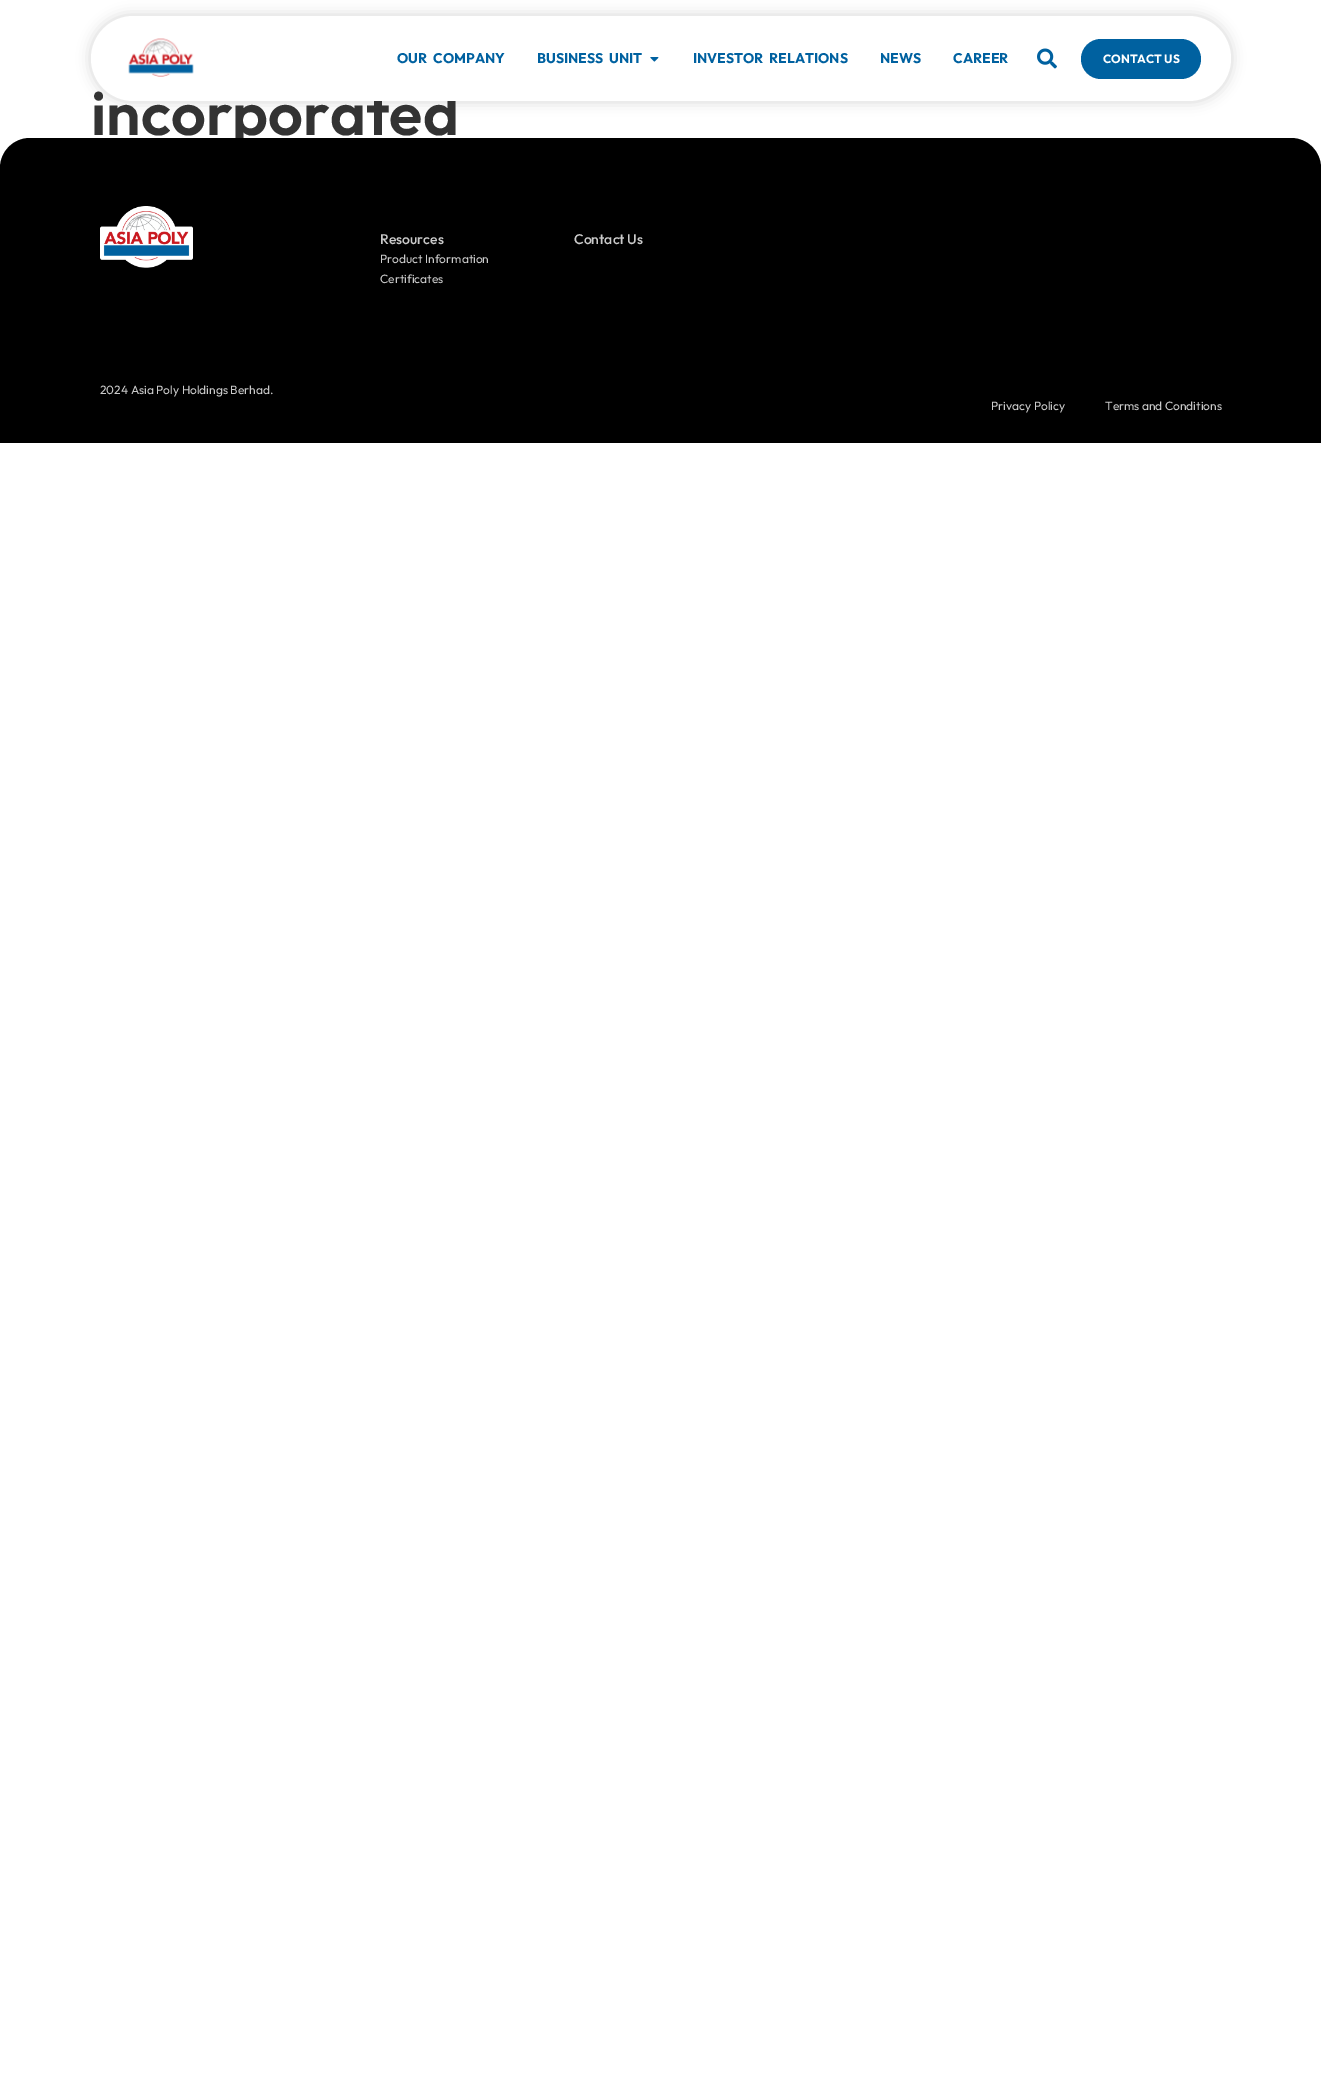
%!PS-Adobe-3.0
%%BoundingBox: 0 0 1321 2081
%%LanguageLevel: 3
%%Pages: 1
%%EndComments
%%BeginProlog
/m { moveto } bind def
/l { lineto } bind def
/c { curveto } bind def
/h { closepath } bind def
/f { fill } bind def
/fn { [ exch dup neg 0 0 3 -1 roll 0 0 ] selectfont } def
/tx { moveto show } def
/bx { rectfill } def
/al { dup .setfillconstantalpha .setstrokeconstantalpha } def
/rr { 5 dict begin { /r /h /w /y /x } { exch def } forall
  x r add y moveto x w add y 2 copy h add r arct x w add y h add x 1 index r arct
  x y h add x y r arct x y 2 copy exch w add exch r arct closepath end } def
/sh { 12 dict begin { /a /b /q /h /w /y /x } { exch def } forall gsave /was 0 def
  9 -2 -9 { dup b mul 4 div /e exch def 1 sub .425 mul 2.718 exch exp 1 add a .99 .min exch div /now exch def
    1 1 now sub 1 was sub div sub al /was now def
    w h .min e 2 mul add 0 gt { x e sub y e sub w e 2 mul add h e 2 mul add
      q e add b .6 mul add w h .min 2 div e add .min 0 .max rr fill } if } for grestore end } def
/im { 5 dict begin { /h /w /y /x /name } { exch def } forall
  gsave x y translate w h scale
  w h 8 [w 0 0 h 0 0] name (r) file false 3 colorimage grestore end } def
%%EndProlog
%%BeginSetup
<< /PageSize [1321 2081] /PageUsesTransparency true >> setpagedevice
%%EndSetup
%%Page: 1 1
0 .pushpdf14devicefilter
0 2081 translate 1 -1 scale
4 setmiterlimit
1 setgray
0 0 1321 2081 bx
0 setgray
90 15 1142 87 43.5 6.5 0.15 sh
/Outfit-SemiBold 61.25 fn
0.2 setgray
(incorporated) 91 135 tx
1 setgray
91 16 1140 85 42.5 rr f
(image0.raw) 128 38 66 39 im
/Outfit-Bold 14 fn
0 0.38 0.627 setrgbcolor
397 63 m 3 0 32 (OUR COMPANY) widthshow
537 63 m 3 0 32 (BUSINESS UNIT) widthshow
(image1.raw) 650 57 9 5 im
693 63 m 3 0 32 (INVESTOR RELATIONS) widthshow
(NEWS) 880 63 tx
(CAREER) 953 63 tx
(image2.raw) 1037 48 20 21 im
1081 39 120 40 20 rr f
/Outfit-Bold 12 fn
1 setgray
(CONTACT US) 1103 63 tx
0 setgray
30 138 m 1291 138 l 1307.5 138 1321 151.5 1321 168 c 1321 443 l 0 443 l 0 168 l 0 151.5 13.5 138 30 138 c h f
/Outfit-Medium 14 fn
0.792 setgray
(Resources) 380 244 tx
/Outfit-Regular 12 fn
(Product Information) 380 263 tx
(Certificates) 380 283 tx
/Outfit-Medium 14 fn
(Contact Us) 574 244 tx
(image3.raw) 100 206 93 62 im
/Outfit-Regular 12 fn
(2024 Asia Poly Holdings Berhad.) 100 394 tx
(Privacy Policy) 991 410 tx
(Terms and Conditions) 1105 410 tx
.poppdf14devicefilter showpage
%%EOF
